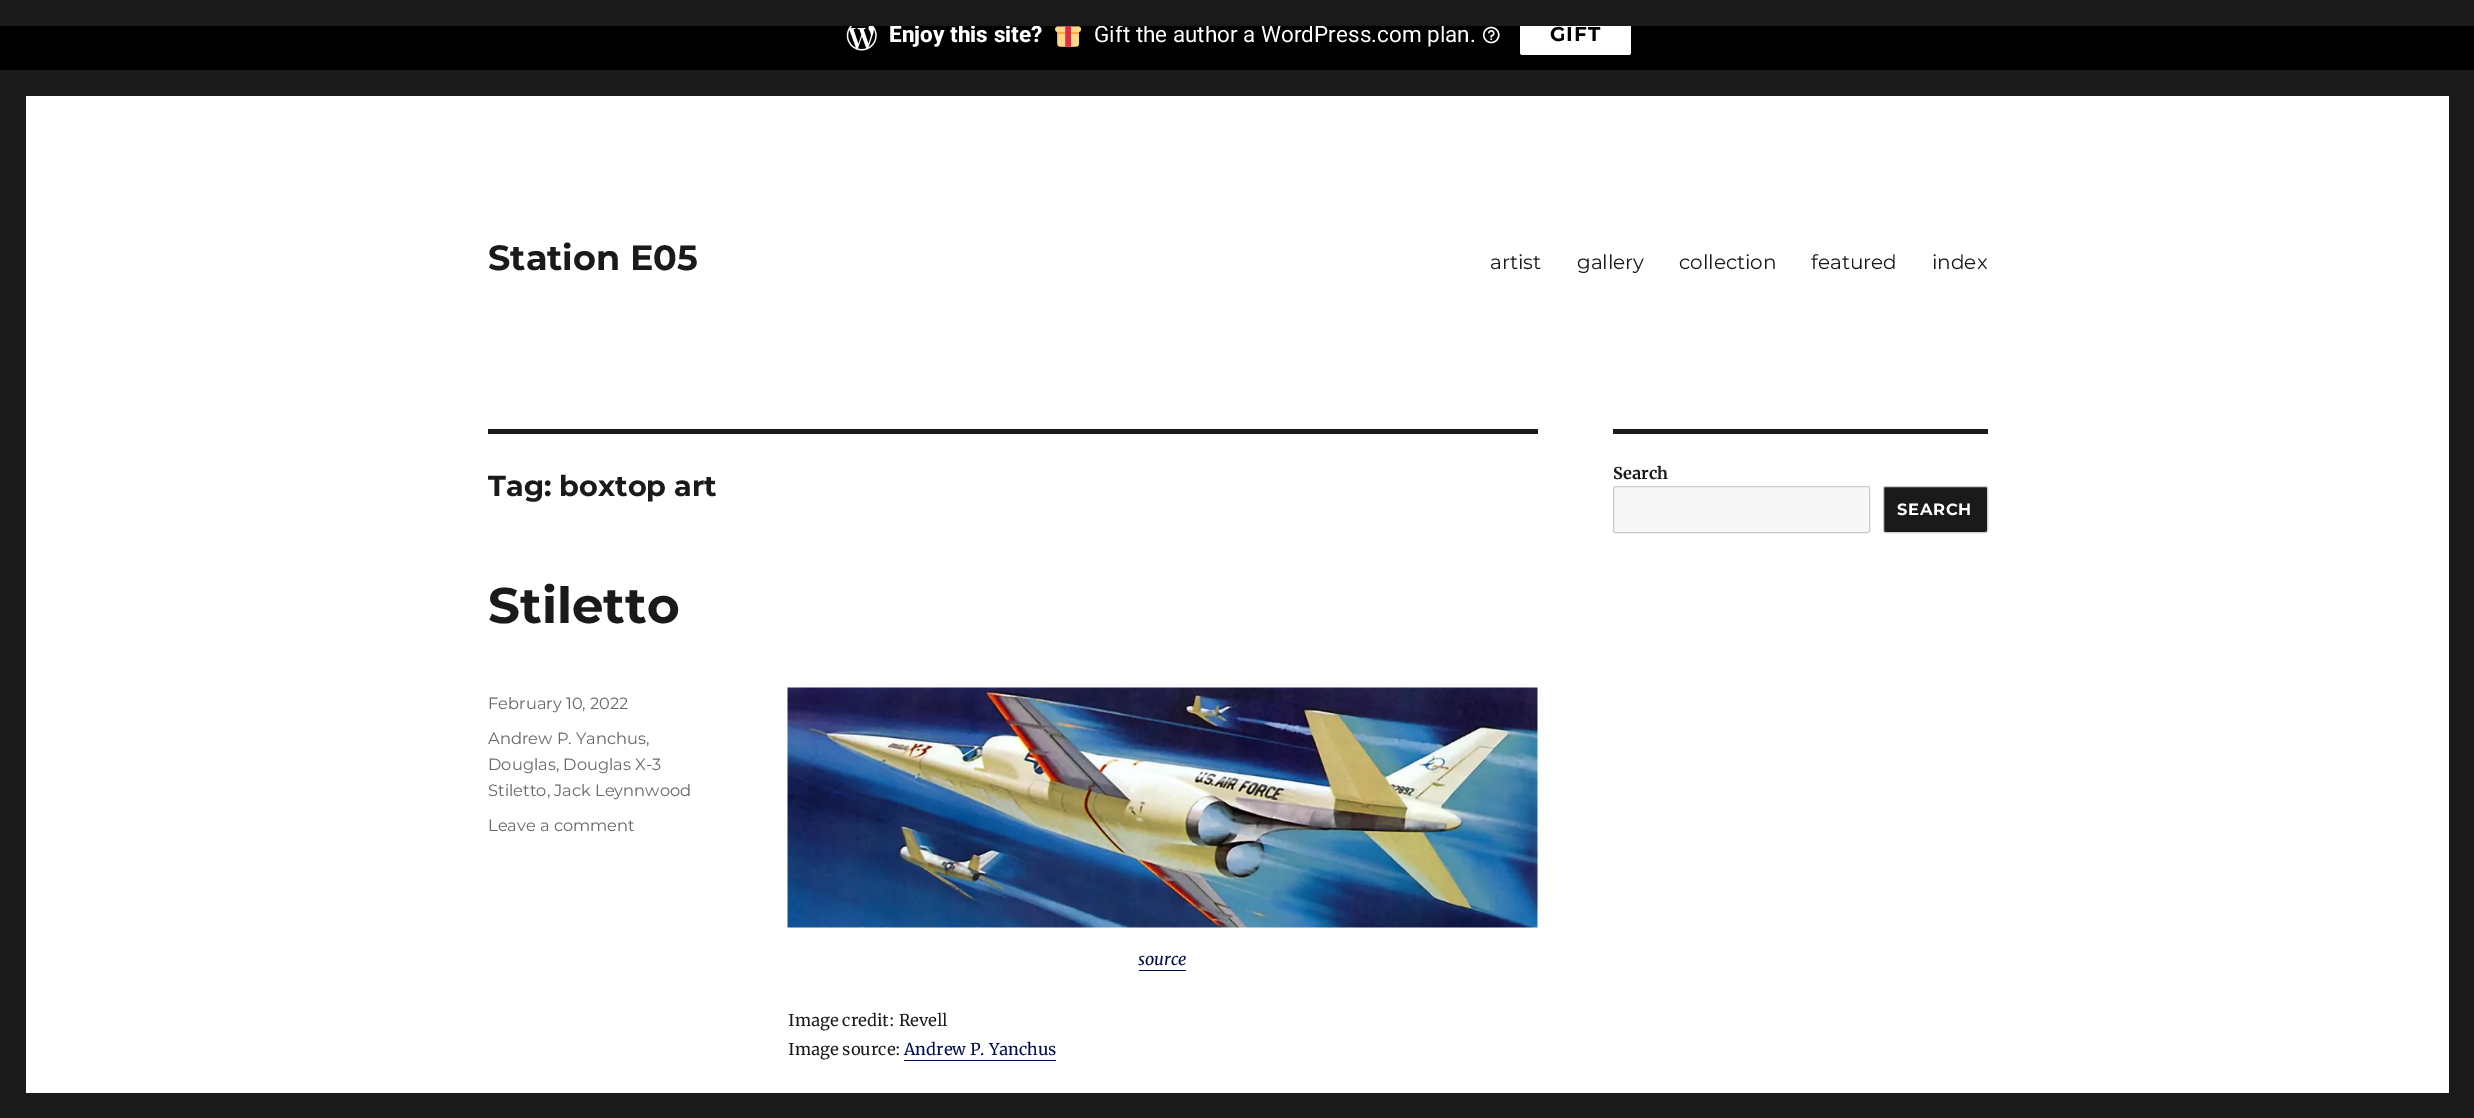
%!PS-Adobe-3.0
%%BoundingBox: 0 0 2474 1118
%%LanguageLevel: 3
%%Pages: 1
%%EndComments
%%BeginProlog
/m { moveto } bind def
/f { fill } bind def
/S { stroke } bind def
/q { gsave } bind def
/Q { grestore } bind def
/fn { [ exch dup neg 0 0 3 -1 roll 0 0 ] selectfont } def
/tx { moveto show } def
/bx { rectfill } def
/rr { 5 dict begin { /r /h /w /y /x } { exch def } forall
  x r add y moveto x w add y 2 copy h add r arct x w add y h add x 1 index r arct
  x y h add x y r arct x y 2 copy exch w add exch r arct closepath end } def
/im { 5 dict begin { /h /w /y /x /name } { exch def } forall
  gsave x y translate w h scale
  w h 8 [w 0 0 h 0 0] name (r) file false 3 colorimage grestore end } def
%%EndProlog
%%BeginSetup
<< /PageSize [2474 1118] >> setpagedevice
%%EndSetup
%%Page: 1 1
0 1118 translate 1 -1 scale
4 setmiterlimit
0.102 setgray
0 0 2474 1118 bx
0 setgray
0 26 2474 44 bx
/Roboto-ExtraBold 22.5 fn
1 setgray
(Enjoy this site?) 889 42 tx
/Roboto-Regular 22.5 fn
(Gift the author a WordPress.com plan.) 1094 42 tx
1520 15 111 40 2.5 rr f
0.102 setgray
915 15 716 11 bx
(image0.raw) 846 26 31 25 im
(image1.raw) 1055 26 26 21 im
(image2.raw) 1482 26 18 18 im
/Montserrat-Thin 20 fn
0 setgray
1550 41 m 1 0 (GIFT) ashow
1 setgray
26 96 2423 997 bx
/Montserrat-Thin 35 fn
0.102 setgray
(Station E05) 488 270 tx
/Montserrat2-Thin 20 fn
(artist) 1490 269 tx
(gallery) 1577 269 tx
(collection) 1679 269 tx
(featured) 1811 269 tx
(index) 1932 269 tx
488 429 1050 5 bx
/Montserrat-Thin 28.75 fn
(Tag: boxtop art) 488 496 tx
/Montserrat-Thin 50 fn
(Stiletto) 488 623 tx
/Montserrat2-Thin 16.25 fn
0.408 setgray
(February 10, 2022) 488 709 tx
(Andrew P. Yanchus,) 488 744 tx
(Douglas, Douglas X-3) 488 770 tx
(Stiletto, Jack Leynnwood) 488 796 tx
(Leave a comment) 488 831 tx
(image3.raw) 787 687 751 241 im
/Merriweather-Italic 16.25 fn
0 0.047 0.31 setrgbcolor
(source) 1138 965 tx
1139 970 47 1 bx
/Merriweather-Regular 16.25 fn
0.102 setgray
(Image credit: Revell) 788 1026 tx
(Image source:) 788 1055 tx
0 0.047 0.31 setrgbcolor
(Andrew P. Yanchus) 904 1055 tx
904 1060 152 1 bx
0.102 setgray
1613 429 375 5 bx
/Merriweather-Bold 16.25 fn
(Search) 1613 479 tx
0.969 setgray
1613.5 486.5 256 46 2 rr q f Q
0.796 setgray
S
0.102 setgray
1883.5 486.5 104 46 2 rr q f Q
0.8 setgray
S
/Montserrat-Thin 16.25 fn
1 setgray
1897 515 m 0.75 0 (SEARCH) ashow
showpage
%%EOF
